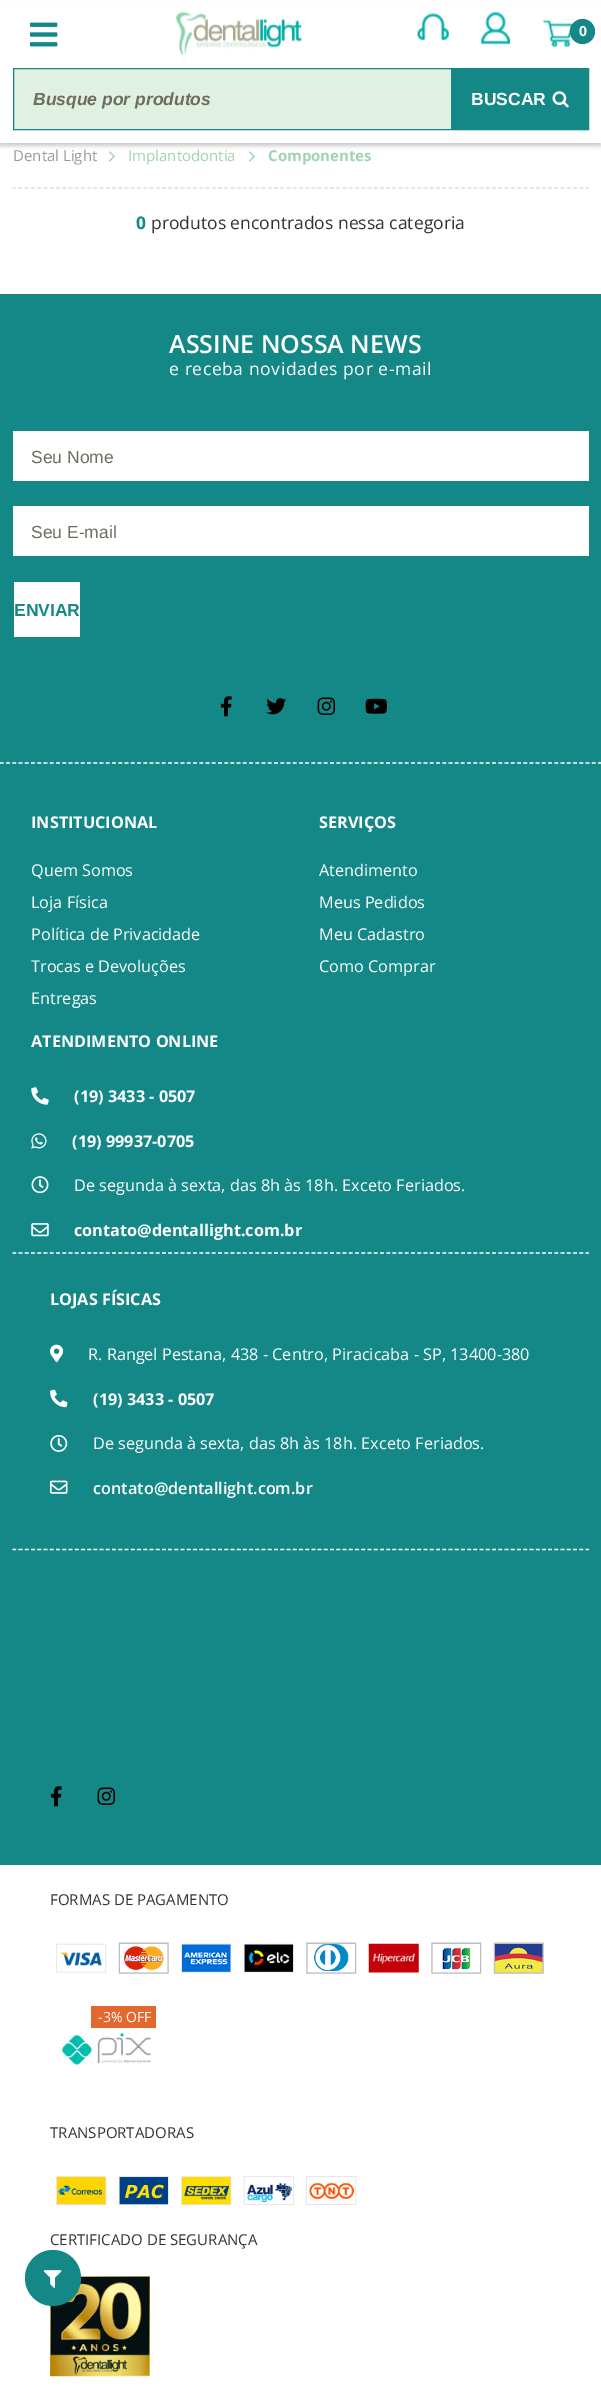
%!PS-Adobe-3.0
%%BoundingBox: 0 0 601 2387
%%LanguageLevel: 3
%%Pages: 1
%%EndComments
%%BeginProlog
/m { moveto } bind def
/l { lineto } bind def
/f { fill } bind def
/S { stroke } bind def
/w { setlinewidth } bind def
/fn { [ exch dup neg 0 0 3 -1 roll 0 0 ] selectfont } def
/tx { moveto show } def
/bx { rectfill } def
/al { dup .setfillconstantalpha .setstrokeconstantalpha } def
/ci { newpath 0 360 arc closepath } def
/rr { 5 dict begin { /r /h /w /y /x } { exch def } forall
  x r add y moveto x w add y 2 copy h add r arct x w add y h add x 1 index r arct
  x y h add x y r arct x y 2 copy exch w add exch r arct closepath end } def
/sh { 12 dict begin { /a /b /q /h /w /y /x } { exch def } forall gsave /was 0 def
  9 -2 -9 { dup b mul 4 div /e exch def 1 sub .425 mul 2.718 exch exp 1 add a .99 .min exch div /now exch def
    1 1 now sub 1 was sub div sub al /was now def
    w h .min e 2 mul add 0 gt { x e sub y e sub w e 2 mul add h e 2 mul add
      q e add b .6 mul add w h .min 2 div e add .min 0 .max rr fill } if } for grestore end } def
/im { 5 dict begin { /h /w /y /x /name } { exch def } forall
  gsave x y translate w h scale
  w h 8 [w 0 0 h 0 0] name (r) file false 3 colorimage grestore end } def
%%EndProlog
%%BeginSetup
<< /PageSize [601 2387] /PageUsesTransparency true >> setpagedevice
%%EndSetup
%%Page: 1 1
0 .pushpdf14devicefilter
0 2387 translate 1 -1 scale
4 setmiterlimit
1 setgray
0 0 601 2387 bx
(image6.raw) 109 151 6 11 im
(image6.raw) 249 151 6 11 im
0 setgray
0 4 601 142 0 2 0.2 sh
1 setgray
0 1 601 142 bx
(image0.raw) 30 22 28 25 im
(image1.raw) 176 12 126 43 im
(image2.raw) 417 13 32 28 im
(image3.raw) 481 12 29 33 im
(image4.raw) 542 19 32 29 im
0.075 0.533 0.525 setrgbcolor
582.5 31.5 12.5 ci f
/OpenSans-Bold 14 fn
1 setgray
(0) 579 36 tx
0.878 0.945 0.894 setrgbcolor
14 69 437 60 bx
0.075 0.533 0.525 setrgbcolor
13.5 68.5 575 61 rectstroke
/LiberationSans-BoldItalic 17.5 fn
0.427 0.427 0.373 setrgbcolor
(Busque por produtos) 33 105 tx
0.075 0.533 0.525 setrgbcolor
451 69 137 60 bx
/LiberationSans-Bold 17.5 fn
1 setgray
(BUSCAR) 471 105 tx
(image5.raw) 552 91 17 17 im
0.867 setgray
1.2 w
[3.75 2.48] 0 setdash
12.5 188 m 589 188 l S
/OpenSans-Regular 15 fn
0.6 setgray
(Dental Light) 13 161 tx
0.624 0.824 0.69 setrgbcolor
(Implantodontia) 128 161 tx
/OpenSans-Bold 15 fn
(Componentes) 268 161 tx
/OpenSans-Bold 17.5 fn
0.075 0.533 0.525 setrgbcolor
(0) 136 229 tx
/OpenSans-Regular 17.5 fn
0.2 setgray
(produtos encontrados nessa categoria) 151 229 tx
(image34.raw) 50 2276 100 101 im
0.075 0.533 0.525 setrgbcolor
53 2278 28 ci f
(image7.raw) 43 2270 19 18 im
0 294 601 1571 bx
1 setgray
0 763 m 601 763 l S
/OpenSans-SemiBold 25 fn
(ASSINE NOSSA NEWS) 169 353 tx
/OpenSans-Regular 17.5 fn
169 375 m 0.6 0 (e receba novidades por e-mail) ashow
13 431 576 50 bx
/LiberationSans-Regular 17.5 fn
0.427 0.427 0.373 setrgbcolor
(Seu Nome) 31 463 tx
1 setgray
13 506 576 50 bx
0.427 0.427 0.373 setrgbcolor
(Seu E-mail) 31 538 tx
1 setgray
14 582 66 55 bx
/LiberationSans-Bold 17.5 fn
0.075 0.533 0.525 setrgbcolor
(ENVIAR) 14 616 tx
(image8.raw) 220 696 12 21 im
(image9.raw) 266 698 20 17 im
(image10.raw) 317 697 19 18 im
(image11.raw) 365 698 22 16 im
/OpenSans-Bold 16.25 fn
1 setgray
(INSTITUCIONAL) 31 828 tx
/OpenSans-Regular 16.25 fn
(Quem Somos) 31 876 tx
(Loja Física) 31 908 tx
(Política de Privacidade) 31 940 tx
(Trocas e Devoluções) 31 972 tx
(Entregas) 31 1004 tx
/OpenSans-Bold 16.25 fn
(SERVIÇOS) 319 828 tx
/OpenSans-Regular 16.25 fn
(Atendimento) 319 876 tx
(Meus Pedidos) 319 908 tx
(Meu Cadastro) 319 940 tx
(Como Comprar) 319 972 tx
/OpenSans-Bold 16.25 fn
(ATENDIMENTO ONLINE) 31 1047 tx
(image12.raw) 31 1087 18 18 im
(\(19\) 3433 - 0507) 74 1102 tx
(image13.raw) 31 1133 16 16 im
(\(19\) 99937-0705) 72 1147 tx
(image14.raw) 31 1176 18 18 im
/OpenSans-Regular 16.25 fn
(De segunda à sexta, das 8h às 18h. Exceto Feriados.) 74 1191 tx
(image15.raw) 31 1223 18 14 im
/OpenSans-Bold 16.25 fn
(contato@dentallight.com.br) 74 1236 tx
12.5 1253 m 589 1253 l S
12.5 1549.5 m 589 1549.5 l S
(LOJAS FÍSICAS) 50 1305 tx
(image16.raw) 50 1344 14 19 im
/OpenSans-Regular 16.25 fn
(R. Rangel Pestana, 438 - Centro, Piracicaba - SP, 13400-380) 88 1360 tx
(image17.raw) 50 1389 18 19 im
/OpenSans-Bold 16.25 fn
(\(19\) 3433 - 0507) 93 1405 tx
(image18.raw) 50 1435 18 17 im
/OpenSans-Regular 16.25 fn
(De segunda à sexta, das 8h às 18h. Exceto Feriados.) 93 1449 tx
(image19.raw) 50 1480 18 14 im
/OpenSans-SemiBold 16.25 fn
(contato@dentallight.com.br) 93 1494 tx
(image8.raw) 50 1786 12 21 im
(image10.raw) 97 1787 19 18 im
/OpenSans-Regular 15 fn
0.2 setgray
(FORMAS DE PAGAMENTO) 50 1905 tx
(image20.raw) 56 1943 51 30 im
(image21.raw) 118 1942 51 32 im
(image22.raw) 181 1943 51 30 im
(image23.raw) 243 1943 51 30 im
(image24.raw) 306 1942 51 32 im
(image25.raw) 368 1943 51 30 im
(image26.raw) 431 1942 51 32 im
(image27.raw) 493 1942 51 32 im
0.894 0.404 0.184 setrgbcolor
91 2006 65 22 bx
/OpenSans-Regular 14 fn
1 setgray
(-3% OFF) 98 2022 tx
(image28.raw) 62 2033 90 32 im
/OpenSans-Regular 15 fn
0.2 setgray
(TRANSPORTADORAS) 50 2138 tx
(image29.raw) 56 2176 51 29 im
(image30.raw) 118 2176 51 29 im
(image31.raw) 181 2176 51 29 im
(image32.raw) 243 2176 51 29 im
(image33.raw) 306 2176 51 29 im
(CERTIFICADO DE SEGURANÇA) 50 2245 tx
.poppdf14devicefilter showpage
%%EOF
